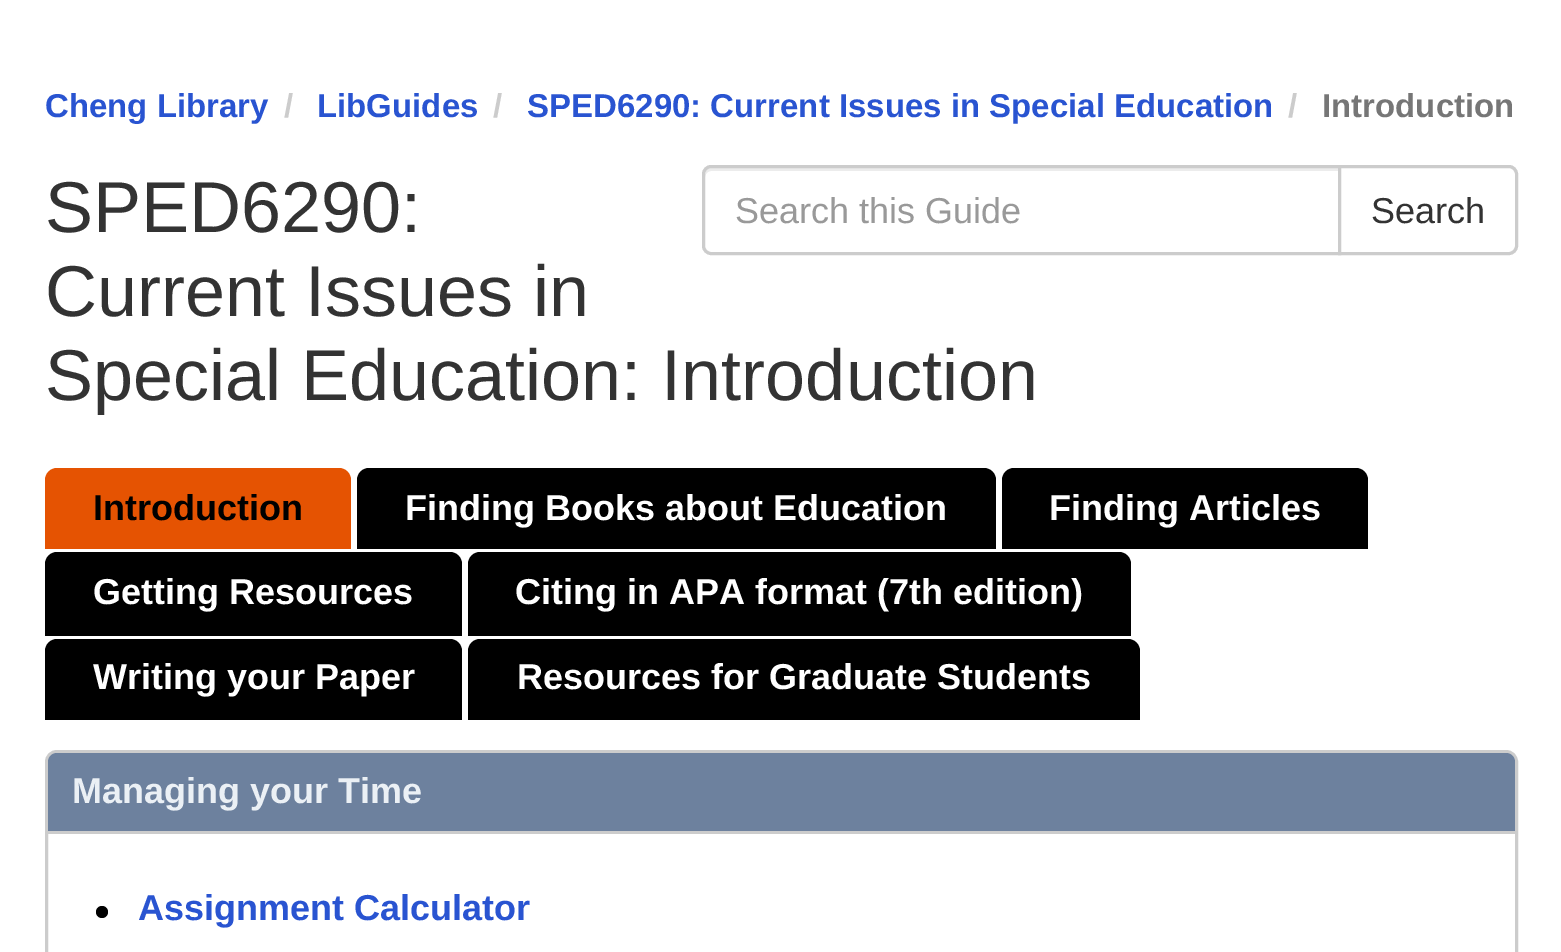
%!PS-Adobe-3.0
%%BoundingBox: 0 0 1561 952
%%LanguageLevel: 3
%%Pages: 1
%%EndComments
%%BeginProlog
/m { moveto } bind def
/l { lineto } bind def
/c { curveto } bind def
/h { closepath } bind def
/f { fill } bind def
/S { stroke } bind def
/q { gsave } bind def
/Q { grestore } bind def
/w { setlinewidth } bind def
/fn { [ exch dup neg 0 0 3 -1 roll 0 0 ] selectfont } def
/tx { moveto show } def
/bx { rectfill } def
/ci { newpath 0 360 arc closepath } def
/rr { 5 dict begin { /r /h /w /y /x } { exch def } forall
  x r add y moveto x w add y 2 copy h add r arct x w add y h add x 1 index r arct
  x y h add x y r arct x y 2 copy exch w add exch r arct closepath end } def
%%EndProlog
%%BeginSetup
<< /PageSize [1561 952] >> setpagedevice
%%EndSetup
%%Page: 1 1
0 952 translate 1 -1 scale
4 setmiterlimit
1 setgray
0 0 1561 952 bx
/LiberationSans-Bold 33 fn
0.161 0.329 0.82 setrgbcolor
(Cheng Library) 45 117 tx
0.8 setgray
(/) 284 117 tx
0.161 0.329 0.82 setrgbcolor
(LibGuides) 317 117 tx
0.8 setgray
(/) 493 117 tx
0.161 0.329 0.82 setrgbcolor
(SPED6290: Current Issues in Special Education) 527 117 tx
0.8 setgray
(/) 1288 117 tx
0.463 setgray
(Introduction) 1322 117 tx
/LiberationSans-Regular 72 fn
0.2 setgray
(SPED6290:) 45 232 tx
(Current Issues in) 45 316 tx
(Special Education: Introduction) 45 400 tx
0.925 setgray
711 171 m 1338 171 l 1338 168 l 711 168 l 706 168 705 173 705 177 c 705 174 708 171 711 171 c h f
0.8 setgray
3 w
711 166.5 m 1339.5 166.5 l 1339.5 253.5 l 711 253.5 l 707 253.5 703.5 250 703.5 246 c 703.5 174 l 703.5 170 707 166.5 711 166.5 c h S
/LiberationSans-Regular 36 fn
0.6 setgray
(Search this Guide) 735 223 tx
1 setgray
1339.5 166.5 m 1509 166.5 l 1513 166.5 1516.5 170 1516.5 174 c 1516.5 246 l 1516.5 250 1513 253.5 1509 253.5 c 1339.5 253.5 l h q f Q
0.8 setgray
S
0.2 setgray
(Search) 1371 223 tx
0.898 0.325 0.008 setrgbcolor
57 468 m 339 468 l 345.5 468 351 473.5 351 480 c 351 549 l 45 549 l 45 480 l 45 473.5 50.5 468 57 468 c h f
/LiberationSans-Bold 36 fn
0 setgray
(Introduction) 93 520 tx
369 468 m 984 468 l 990.5 468 996 473.5 996 480 c 996 549 l 357 549 l 357 480 l 357 473.5 362.5 468 369 468 c h f
1 setgray
(Finding Books about Education) 405 520 tx
0 setgray
1014 468 m 1356 468 l 1362.5 468 1368 473.5 1368 480 c 1368 549 l 1002 549 l 1002 480 l 1002 473.5 1007.5 468 1014 468 c h f
1 setgray
(Finding Articles) 1049 520 tx
0 setgray
57 552 m 450 552 l 456.5 552 462 557.5 462 564 c 462 636 l 45 636 l 45 564 l 45 557.5 50.5 552 57 552 c h f
1 setgray
(Getting Resources) 93 604 tx
0 setgray
480 552 m 1119 552 l 1125.5 552 1131 557.5 1131 564 c 1131 636 l 468 636 l 468 564 l 468 557.5 473.5 552 480 552 c h f
1 setgray
(Citing in APA format \(7th edition\)) 515 604 tx
0 setgray
57 639 m 450 639 l 456.5 639 462 644.5 462 651 c 462 720 l 45 720 l 45 651 l 45 644.5 50.5 639 57 639 c h f
1 setgray
(Writing your Paper) 93 689 tx
0 setgray
480 639 m 1128 639 l 1134.5 639 1140 644.5 1140 651 c 1140 720 l 468 720 l 468 651 l 468 644.5 473.5 639 480 639 c h f
1 setgray
(Resources for Graduate Students) 517 689 tx
0.8 setgray
46.5 751.5 1470 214 10.5 rr S
0.427 0.506 0.62 setrgbcolor
57 753 m 1506 753 l 1511 753 1515 757 1515 762 c 1515 834 l 48 834 l 48 762 l 48 757 52 753 57 753 c h f
0.8 setgray
48 831 1467 3 bx
0.922 0.941 0.961 setrgbcolor
(Managing your Time) 72 803 tx
0 setgray
102 912 6 ci f
0.161 0.329 0.82 setrgbcolor
(Assignment Calculator) 138 920 tx
showpage
%%EOF
